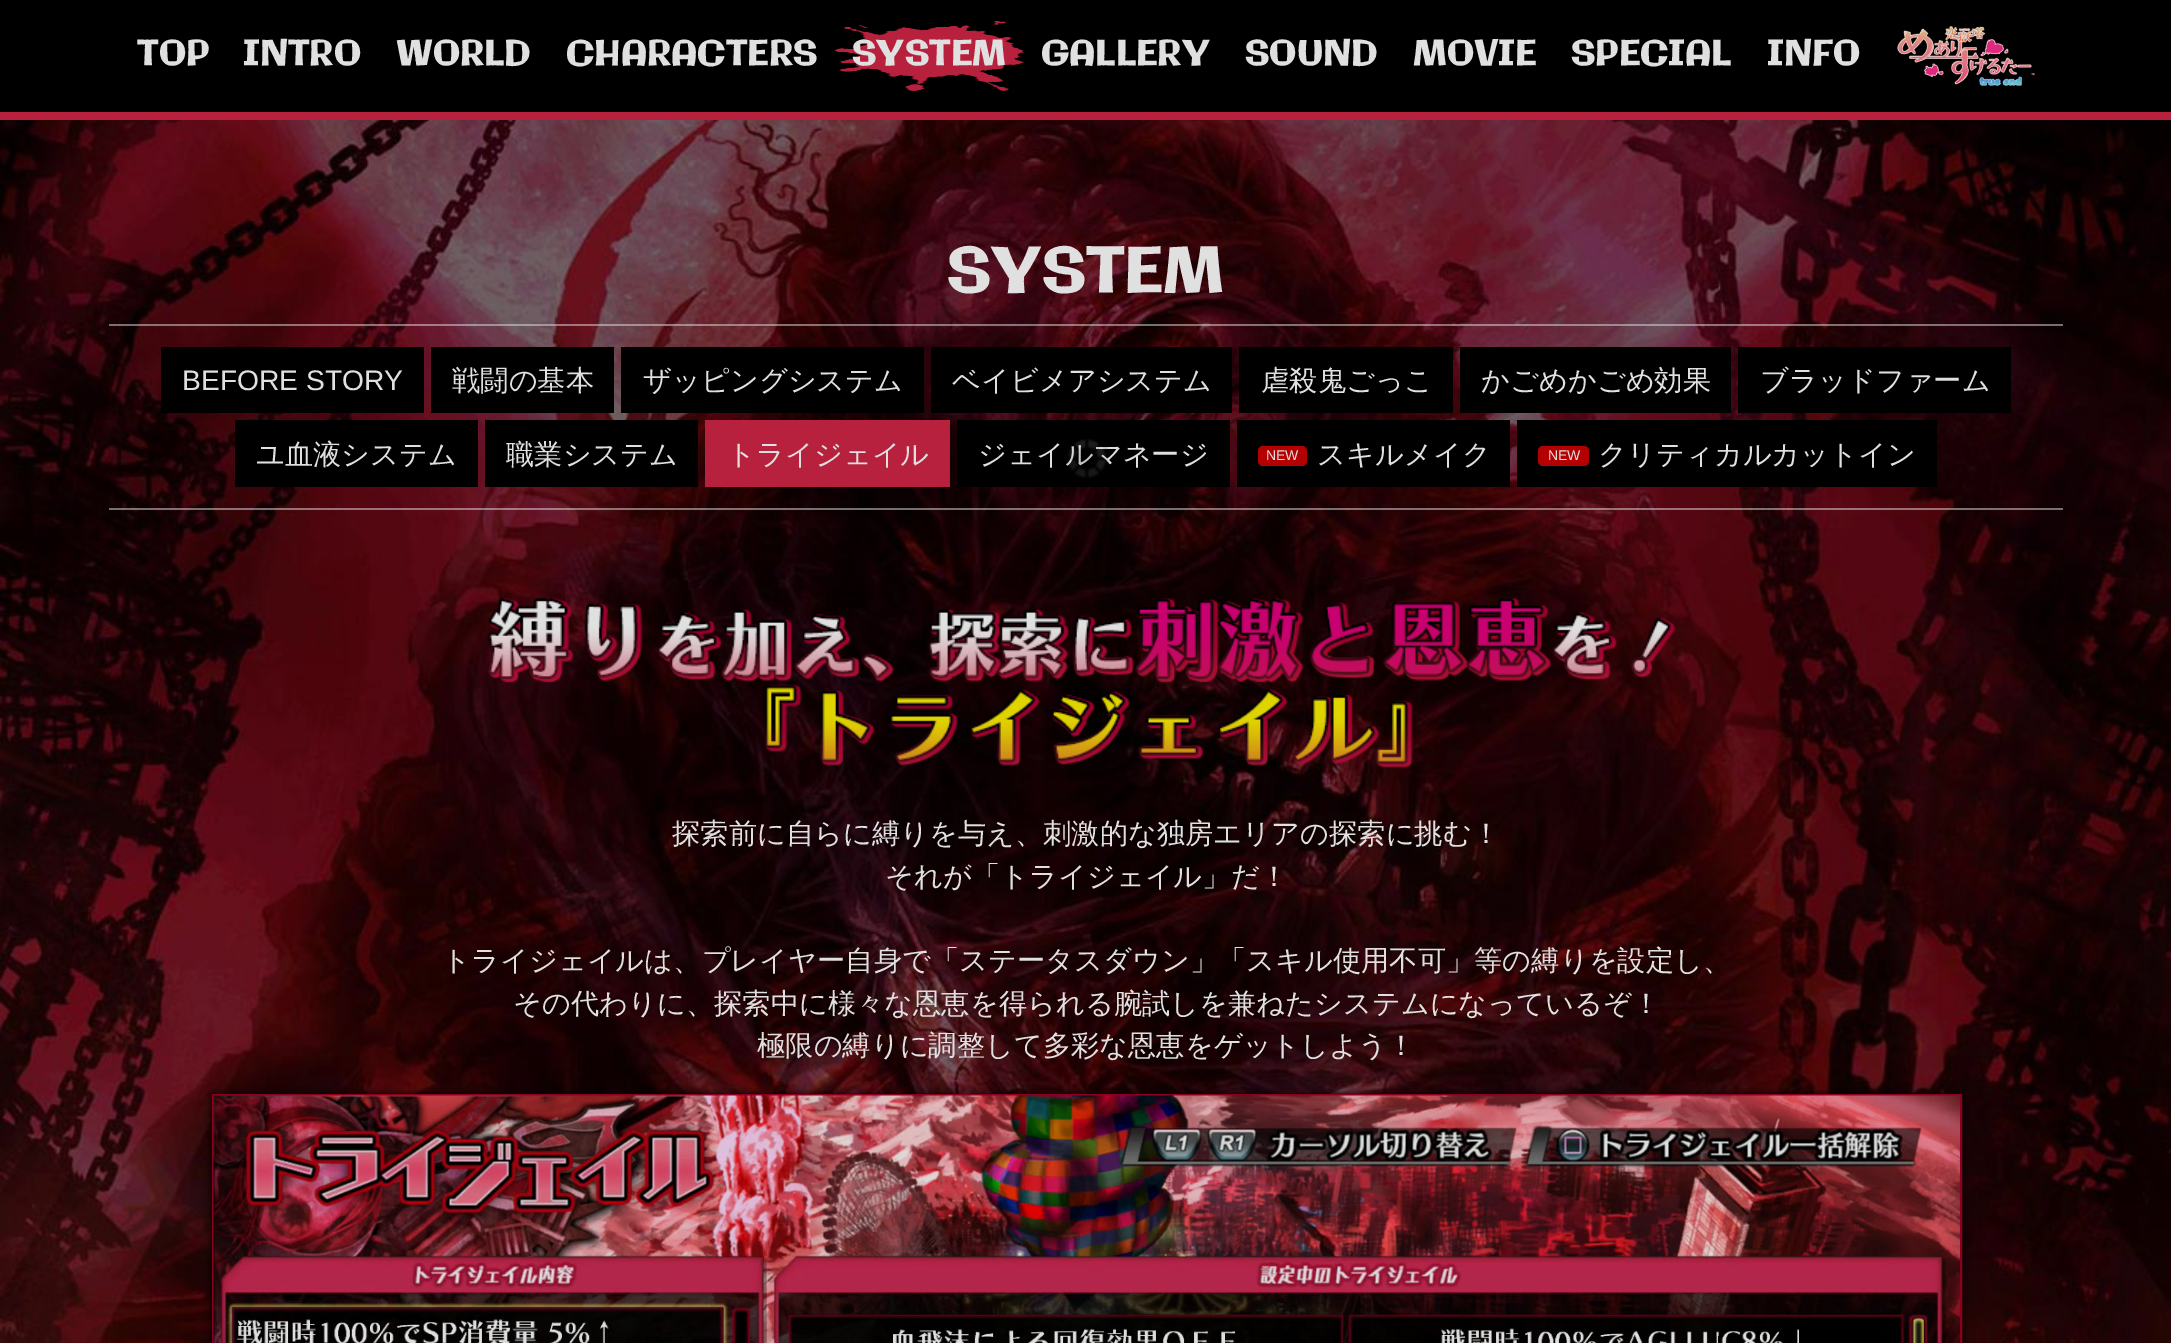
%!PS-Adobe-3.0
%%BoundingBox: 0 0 2171 1343
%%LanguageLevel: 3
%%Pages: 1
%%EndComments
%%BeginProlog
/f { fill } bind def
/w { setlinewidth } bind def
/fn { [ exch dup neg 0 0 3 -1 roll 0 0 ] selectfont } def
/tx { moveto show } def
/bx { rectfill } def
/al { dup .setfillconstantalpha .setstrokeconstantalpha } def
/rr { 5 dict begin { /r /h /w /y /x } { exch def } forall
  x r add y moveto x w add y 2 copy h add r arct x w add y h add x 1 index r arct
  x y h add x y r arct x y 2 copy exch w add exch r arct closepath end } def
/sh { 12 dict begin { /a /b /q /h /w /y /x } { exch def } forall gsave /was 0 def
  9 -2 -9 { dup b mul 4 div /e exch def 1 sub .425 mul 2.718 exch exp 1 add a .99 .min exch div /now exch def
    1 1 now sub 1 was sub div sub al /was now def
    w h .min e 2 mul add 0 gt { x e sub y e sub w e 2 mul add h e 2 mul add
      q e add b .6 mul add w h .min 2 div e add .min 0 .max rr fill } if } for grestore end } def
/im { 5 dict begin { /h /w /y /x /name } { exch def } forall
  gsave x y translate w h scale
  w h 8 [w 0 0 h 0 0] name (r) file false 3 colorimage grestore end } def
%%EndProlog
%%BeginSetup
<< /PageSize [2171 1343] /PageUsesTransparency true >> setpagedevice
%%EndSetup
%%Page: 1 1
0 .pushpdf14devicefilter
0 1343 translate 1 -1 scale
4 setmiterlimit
0 setgray
0 0 2171 1343 bx
0.722 0.129 0.243 setrgbcolor
0 112 2171 8 bx
/Galindo-Regular 35 fn
0.878 setgray
(TOP) 137 65 tx
(INTRO) 243 65 tx
(WORLD) 396 65 tx
(CHARACTERS) 566 65 tx
(image0.raw) 834 21 190 70 im
(SYSTEM) 852 65 tx
(GALLERY) 1041 65 tx
(SOUND) 1245 65 tx
(MOVIE) 1413 65 tx
(SPECIAL) 1571 65 tx
(INFO) 1767 65 tx
(image1.raw) 1897 26 138 60 im
(image2.raw) 0 120 2171 1223 im
/Galindo-Regular 63 fn
(SYSTEM) 947 292 tx
0.5 al
109 324 1954 2 bx
109 508 1954 2 bx
1 al
0 setgray
161 347 263 66 bx
/LiberationSans-Regular 28.25 fn
0.878 setgray
(BEFORE STORY) 182 390 tx
0 setgray
431 347 183 66 bx
/WenQuanYiZenHei-Medium 28.25 fn
0.878 setgray
(戦闘の基本) 452 390 tx
0 setgray
621 347 303 66 bx
0.878 setgray
(ザッピングシステム) 643 390 tx
0 setgray
931 347 301 66 bx
0.878 setgray
(ベイビメアシステム) 952 390 tx
0 setgray
1239 347 214 66 bx
0.878 setgray
(虐殺鬼ごっこ) 1261 390 tx
0 setgray
1460 347 271 66 bx
0.878 setgray
(かごめかごめ効果) 1481 390 tx
0 setgray
1738 347 273 66 bx
0.878 setgray
(ブラッドファーム) 1760 390 tx
0 setgray
235 420 243 67 bx
0.878 setgray
(ユ血液システム) 256 464 tx
0 setgray
485 420 213 67 bx
0.878 setgray
(職業システム) 506 464 tx
0.722 0.129 0.243 setrgbcolor
705 420 245 67 bx
0.878 setgray
(トライジェイル) 727 464 tx
0 setgray
957 420 273 67 bx
0.878 setgray
(ジェイルマネージ) 978 464 tx
0 setgray
1237 420 273 67 bx
0.706 0 0 setrgbcolor
1258 446 49 20 5 rr f
/LiberationSans-Regular 14 fn
0.878 setgray
(NEW) 1266 460 tx
/WenQuanYiZenHei-Medium 28.25 fn
(スキルメイク) 1317 464 tx
0 setgray
1517 420 420 67 bx
0.706 0 0 setrgbcolor
1538 446 51 20 5 rr f
/LiberationSans-Regular 14 fn
0.878 setgray
(NEW) 1548 460 tx
/WenQuanYiZenHei-Medium 28.25 fn
(クリティカルカットイン) 1598 464 tx
(image3.raw) 487 597 1189 171 im
(探索前に自らに縛りを与え、刺激的な独房エリアの探索に挑む！) 672 843 tx
(それが「トライジェイル」だ！) 885 886 tx
(トライジェイルは、プレイヤー自身で「ステータスダウン」「スキル使用不可」等の縛りを設定し、) 442 970 tx
(その代わりに、探索中に様々な恩恵を得られる腕試しを兼ねたシステムになっているぞ！) 513 1013 tx
(極限の縛りに調整して多彩な恩恵をゲットしよう！) 757 1055 tx
0 setgray
212 1094 1750 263 0 4.5 1 sh
0.537 0 0.129 setrgbcolor
2 w
213 1095 1748 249 rectstroke
(image4.raw) 213 1095 1747 248 im
(image5.raw) 1066 439 42 39 im
.poppdf14devicefilter showpage
%%EOF
